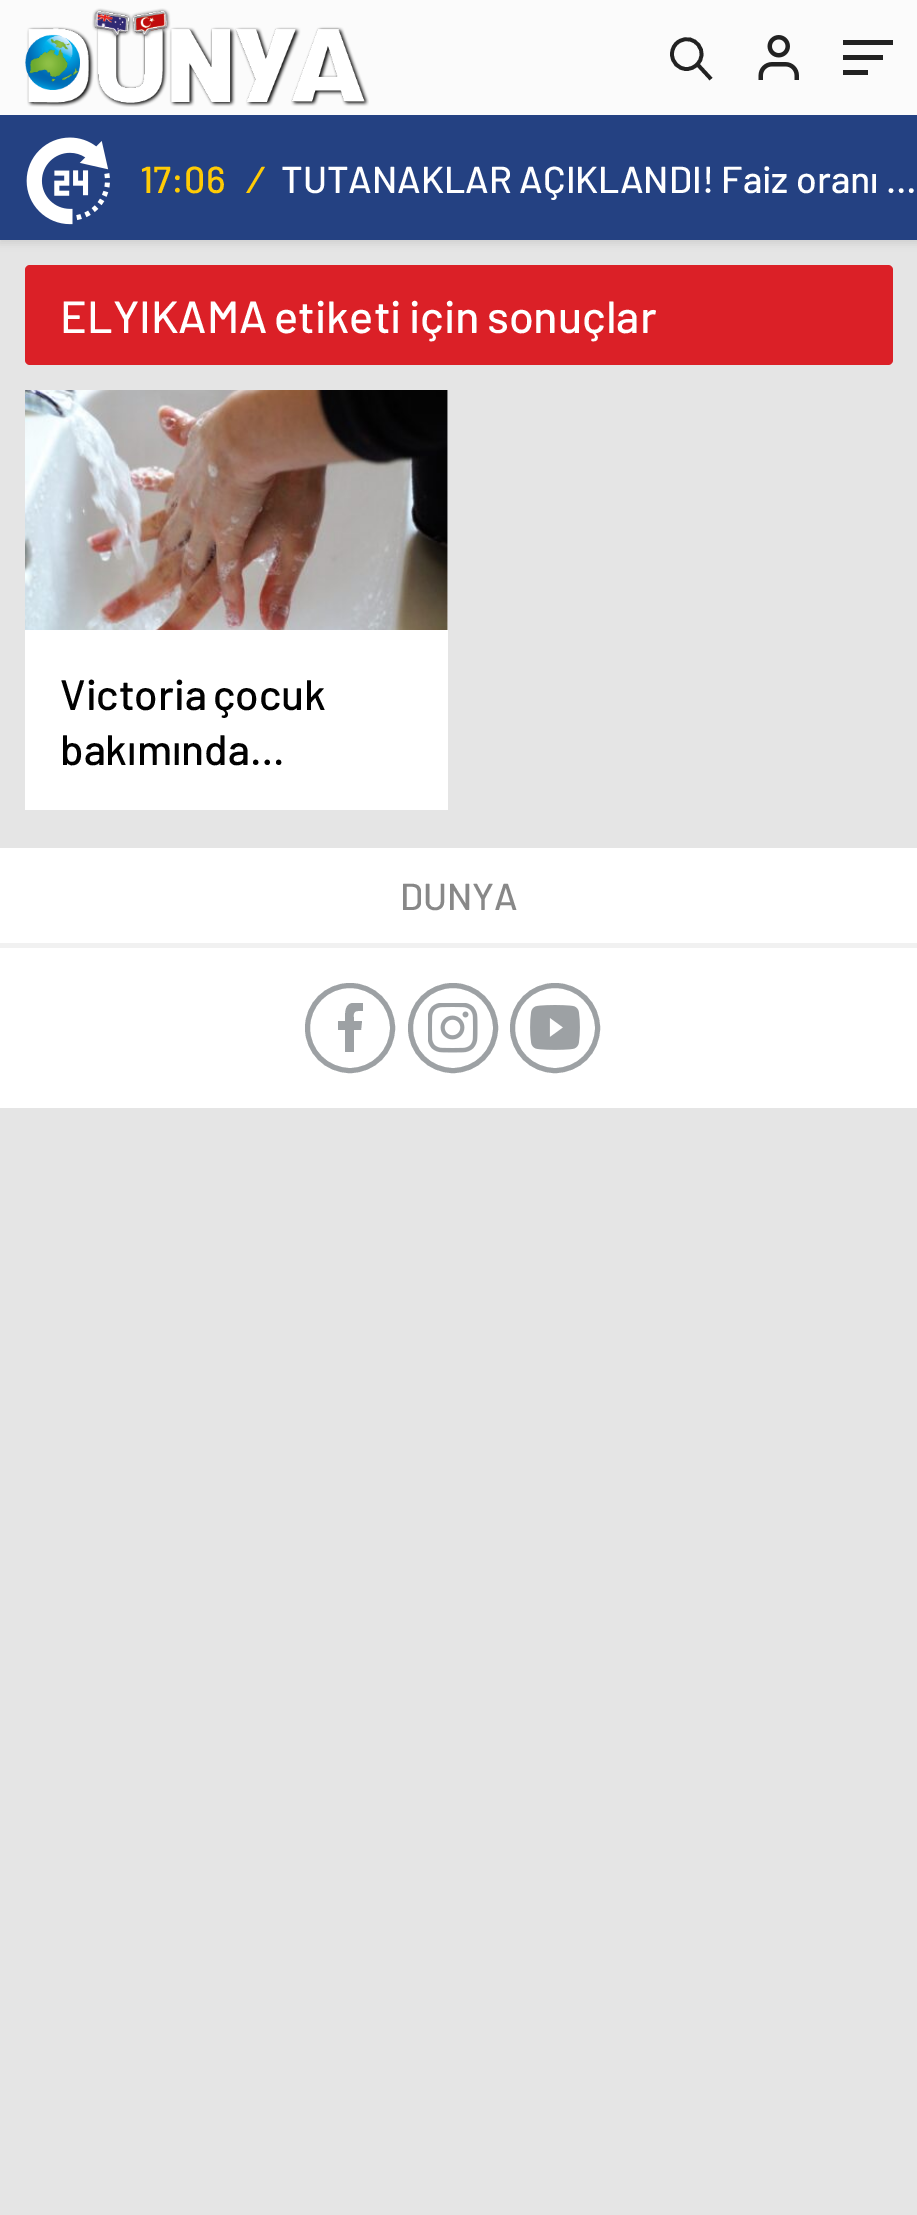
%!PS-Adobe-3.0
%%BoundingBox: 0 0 917 2215
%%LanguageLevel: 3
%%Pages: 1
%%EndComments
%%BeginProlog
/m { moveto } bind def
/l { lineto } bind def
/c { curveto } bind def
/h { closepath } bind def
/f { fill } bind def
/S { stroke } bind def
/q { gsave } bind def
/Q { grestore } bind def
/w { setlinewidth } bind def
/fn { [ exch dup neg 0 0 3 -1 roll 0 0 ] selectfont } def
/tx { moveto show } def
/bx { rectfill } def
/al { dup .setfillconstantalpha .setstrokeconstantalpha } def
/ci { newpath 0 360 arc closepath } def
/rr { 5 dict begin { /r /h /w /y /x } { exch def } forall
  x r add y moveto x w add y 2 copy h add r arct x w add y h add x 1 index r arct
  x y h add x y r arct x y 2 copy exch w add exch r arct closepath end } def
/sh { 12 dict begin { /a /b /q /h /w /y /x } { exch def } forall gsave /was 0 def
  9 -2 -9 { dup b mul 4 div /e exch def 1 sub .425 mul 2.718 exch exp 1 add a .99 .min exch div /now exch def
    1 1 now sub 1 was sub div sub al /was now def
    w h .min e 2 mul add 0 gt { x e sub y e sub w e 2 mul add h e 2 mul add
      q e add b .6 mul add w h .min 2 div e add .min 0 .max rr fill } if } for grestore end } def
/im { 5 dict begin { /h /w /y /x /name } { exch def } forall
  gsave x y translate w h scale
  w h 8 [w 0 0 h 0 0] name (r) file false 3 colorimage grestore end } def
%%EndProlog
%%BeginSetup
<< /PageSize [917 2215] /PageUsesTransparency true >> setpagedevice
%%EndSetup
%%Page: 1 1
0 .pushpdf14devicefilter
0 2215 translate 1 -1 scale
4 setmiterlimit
0.898 setgray
0 0 917 2215 bx
0 setgray
0 3 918 240 0 4 0.1 sh
0.984 setgray
0 0 917 115 bx
(image0.raw) 25 8 344 99 im
0.141 0.255 0.51 setrgbcolor
0 115 917 125 bx
0.133 setgray
3.7 w
1 setlinecap
698.5 65.5 m 711 79 l h 672 54 m 672 49 674.5 44 679 41.5 c 694.5 32 710 53 696.5 65 c 694 67.5 690.5 69 686.5 69 c 678.5 69 672 62.5 672 54 c h S
(image1.raw) 758 35 41 45 im
843 40 50 5 bx
843 55 40 5 bx
843 70 25 5 bx
(image2.raw) 26 137 84 88 im
/Barlow-Medium 37.5 fn
1 0.796 0.02 setrgbcolor
(17:06) 140 193 tx
/Barlow-MediumItalic 37.5 fn
(/) 245 193 tx
/Barlow-Medium 37.5 fn
1 setgray
(TUTANAKLAR AÇIKLANDI! Faiz oranı …) 281 193 tx
0.859 0.125 0.153 setrgbcolor
25 265 868 100 5 rr f
/Barlow-Medium 45 fn
1 setgray
60 333 m -2 0 32 (ELYIKAMA etiketi için sonuçlar) widthshow
25 390 423 420 bx
(image3.raw) 25 390 423 240 im
/Barlow-Medium 42.5 fn
0.004 setgray
60 710 m -2 0 32 (Victoria çocuk) widthshow
(bakımında…) 60 765 tx
1 setgray
0 848 917 260 bx
/Barlow-Medium 37.5 fn
0.533 setgray
(DUNYA) 400 910 tx
0.945 setgray
0 943 917 5 bx
0.616 0.631 0.643 setrgbcolor
5 w
0 setlinecap
350 1028 42.5 ci S
q
338 1003 25 50 rectclip
358 1011 m 363 1011 l 363 1003 l 346 1001 345 1006 345 1021 c 338 1021 l 338 1030 l 345 1030 l 345 1052 l 354 1052 l 354 1030 l 361 1030 l 362 1021 l 354 1021 l 354 1017 352 1011 358 1011 c h f
Q
453 1028 42.5 ci S
(image4.raw) 428 1003 50 50 im
555 1028 42.5 ci S
(image5.raw) 530 1005 50 45 im
.poppdf14devicefilter showpage
%%EOF
